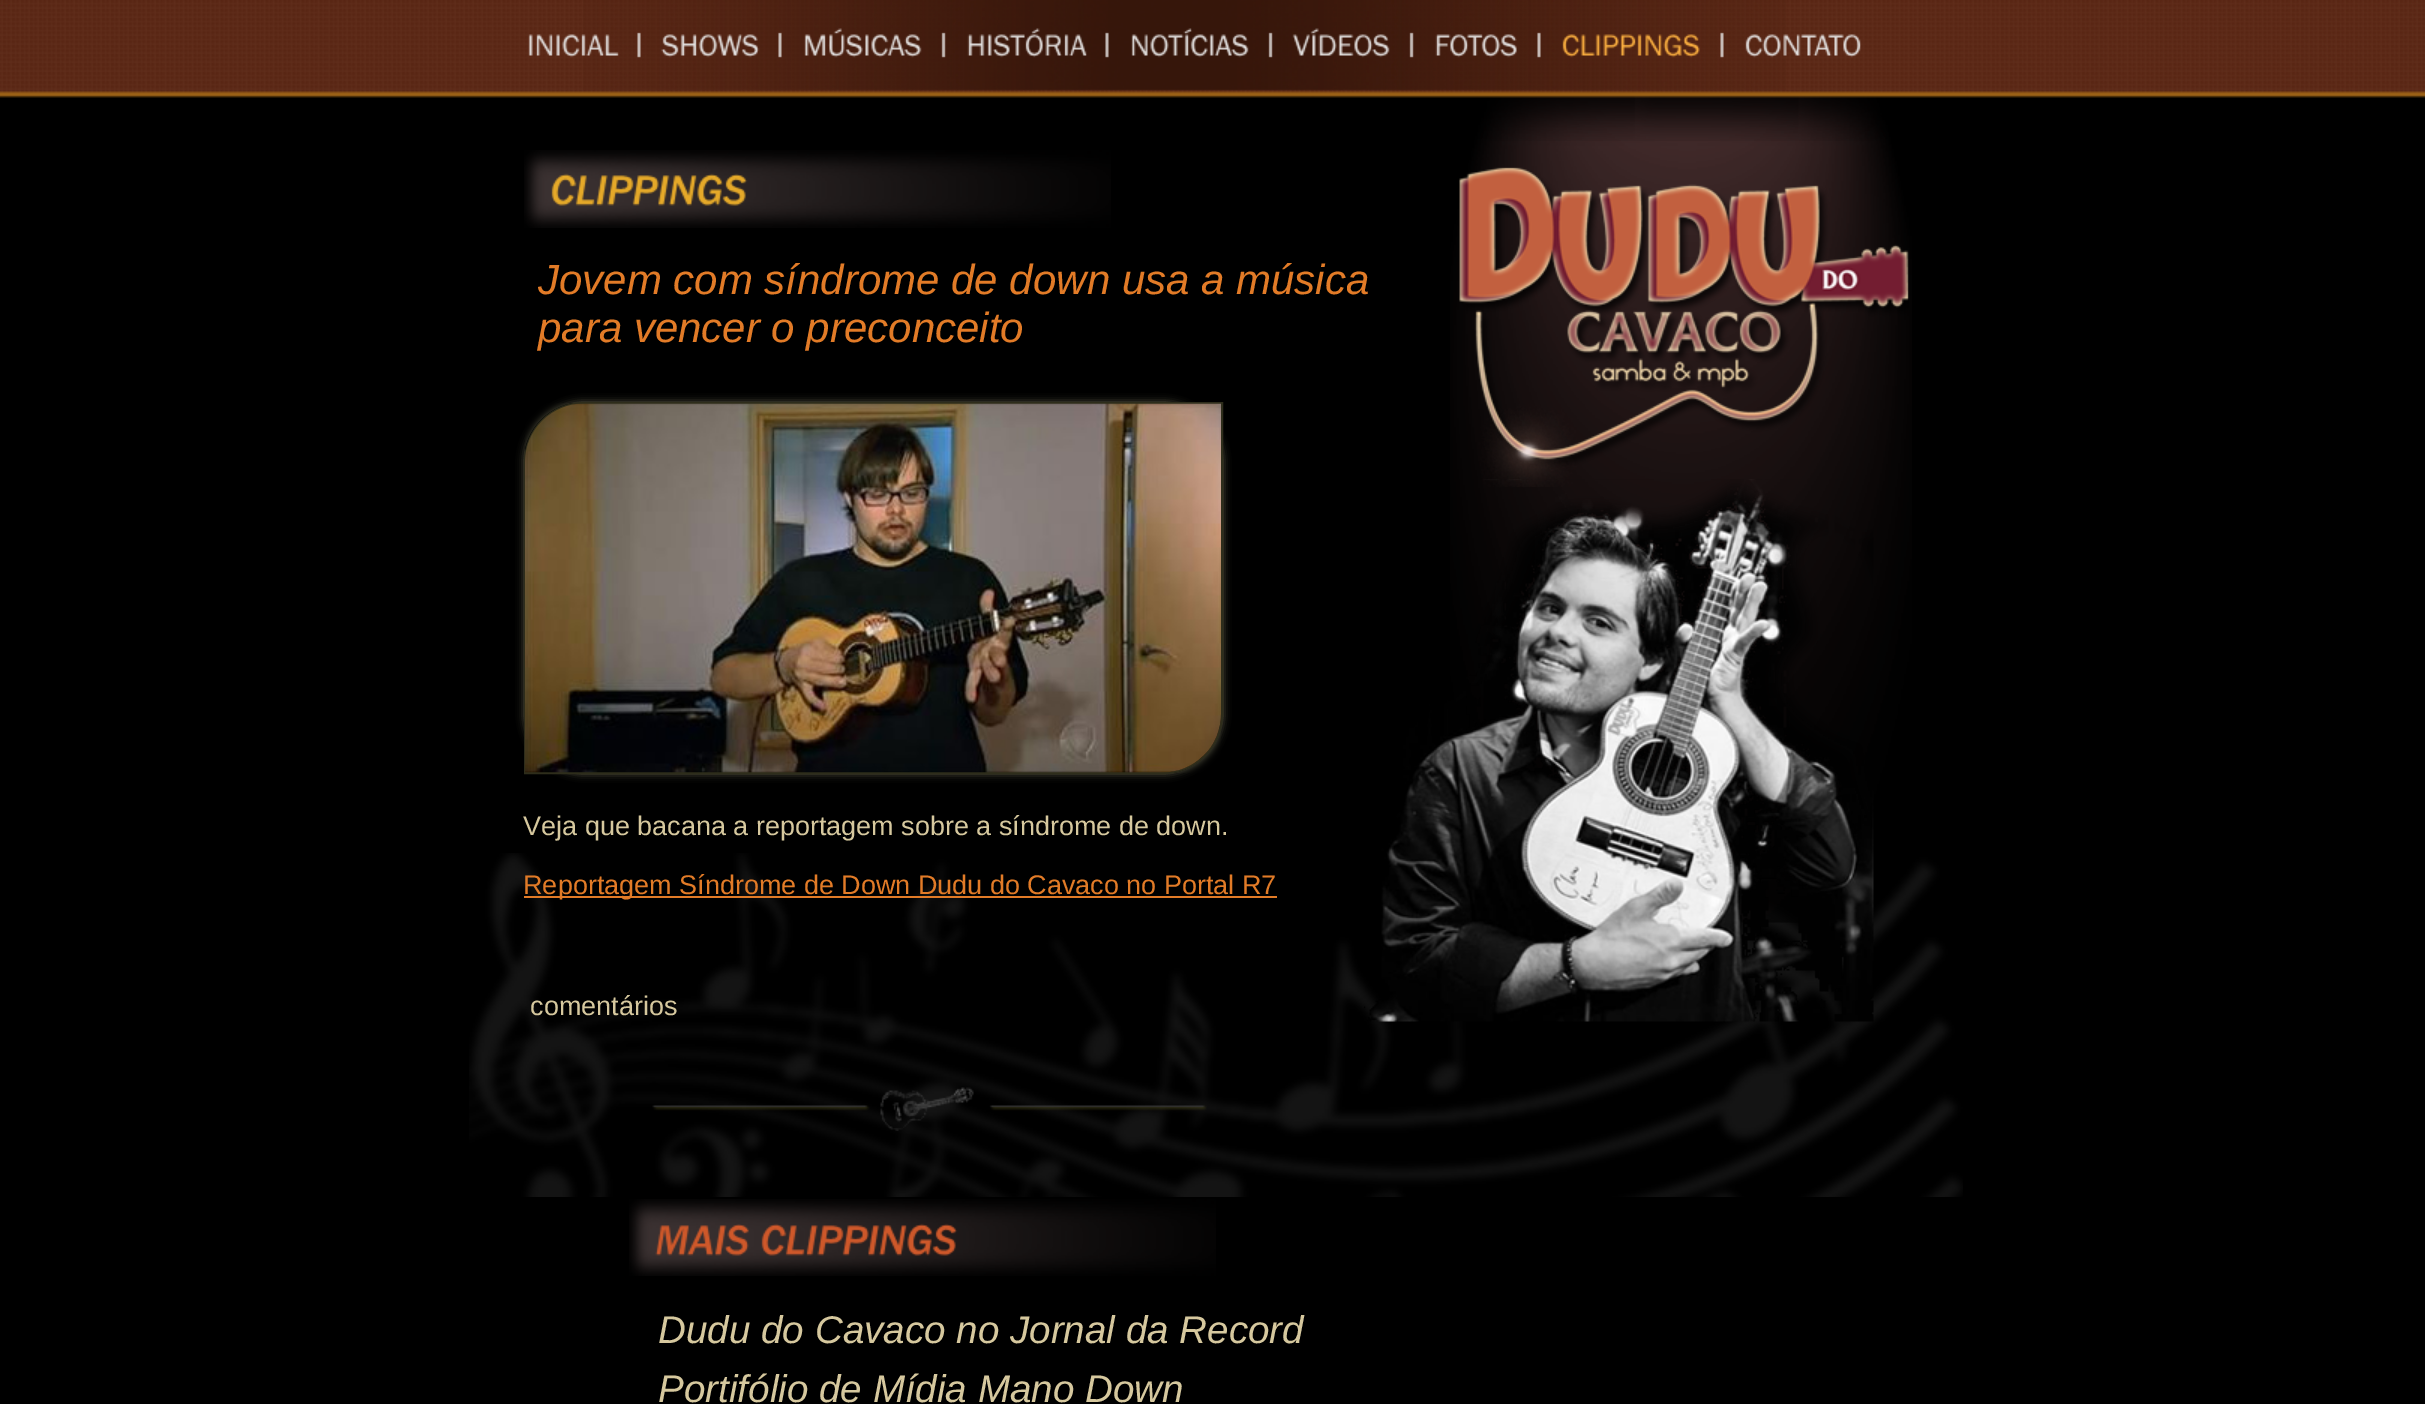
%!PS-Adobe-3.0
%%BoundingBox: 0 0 2425 1404
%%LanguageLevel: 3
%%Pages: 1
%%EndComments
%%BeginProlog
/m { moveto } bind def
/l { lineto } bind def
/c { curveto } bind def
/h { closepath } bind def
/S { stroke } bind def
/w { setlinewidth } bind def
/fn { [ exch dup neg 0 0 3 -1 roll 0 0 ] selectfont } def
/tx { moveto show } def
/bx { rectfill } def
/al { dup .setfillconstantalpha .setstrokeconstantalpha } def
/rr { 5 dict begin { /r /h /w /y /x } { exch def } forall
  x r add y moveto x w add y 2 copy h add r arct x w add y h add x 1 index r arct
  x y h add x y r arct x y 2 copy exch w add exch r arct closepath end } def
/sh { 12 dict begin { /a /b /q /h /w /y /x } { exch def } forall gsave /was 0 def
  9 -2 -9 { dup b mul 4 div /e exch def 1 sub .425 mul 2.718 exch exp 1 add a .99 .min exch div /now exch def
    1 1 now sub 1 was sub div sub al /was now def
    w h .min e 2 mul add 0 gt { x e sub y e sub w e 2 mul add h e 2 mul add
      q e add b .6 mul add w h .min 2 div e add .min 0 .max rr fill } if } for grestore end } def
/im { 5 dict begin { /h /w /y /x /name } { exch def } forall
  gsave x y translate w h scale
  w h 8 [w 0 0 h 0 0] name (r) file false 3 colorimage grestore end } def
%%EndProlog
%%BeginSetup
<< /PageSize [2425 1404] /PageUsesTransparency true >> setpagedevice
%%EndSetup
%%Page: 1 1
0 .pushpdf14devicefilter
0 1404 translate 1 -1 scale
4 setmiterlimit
0 setgray
0 0 2425 1404 bx
(image19.raw) 469 853 1494 344 im
(image24.raw) 1450 95 462 828 im
(image0.raw) 0 0 2425 141 im
(image1.raw) 583 0 1203 91 im
(image2.raw) 637 32 4 26 im
(image3.raw) 528 34 91 24 im
(image4.raw) 778 32 4 26 im
(image5.raw) 661 34 99 24 im
(image6.raw) 941 32 5 26 im
(image7.raw) 804 28 118 30 im
(image8.raw) 1105 32 4 26 im
(image9.raw) 967 28 120 30 im
(image10.raw) 1268 32 5 26 im
(image11.raw) 1131 28 118 30 im
(image12.raw) 1409 32 5 26 im
(image13.raw) 1292 28 98 30 im
(image14.raw) 1537 32 4 26 im
(image15.raw) 1435 34 82 24 im
(image16.raw) 1720 32 4 26 im
(image17.raw) 1562 34 138 24 im
(image18.raw) 1745 34 116 24 im
(image20.raw) 524 150 587 78 im
(image21.raw) 551 173 197 33 im
/LiberationSans-Italic 42 fn
0.886 0.482 0.153 setrgbcolor
(Jovem com síndrome de down usa a música) 538 294 tx
(para vencer o preconceito) 538 342 tx
0.345 0.341 0.263 setrgbcolor
524 402 699 372 60 4 1 sh
0.18 0.176 0.106 setrgbcolor
2 w
584 403 m 1222 403 l 1222 714 l 1222 746.5 1195.5 773 1163 773 c 525 773 l 525 462 l 525 429.5 551.5 403 584 403 c h S
(image22.raw) 525 403 696 370 im
/LiberationSans-Regular 27 fn
0.839 0.784 0.62 setrgbcolor
(Veja que bacana a reportagem sobre a síndrome de down.) 523 835 tx
0.886 0.482 0.153 setrgbcolor
524 896 753 2 bx
(Reportagem Síndrome de Down Dudu do Cavaco no Portal R7) 523 894 tx
0.839 0.784 0.62 setrgbcolor
(comentários) 530 1015 tx
(image23.raw) 652 1087 555 44 im
(image25.raw) 1459 167 450 320 im
(image26.raw) 1364 479 510 543 im
(image27.raw) 629 1199 587 77 im
(image28.raw) 655 1224 94 32 im
(image29.raw) 761 1223 197 33 im
/LiberationSans-Italic 38.6 fn
(Dudu do Cavaco no Jornal da Record) 658 1343 tx
(Portifólio de Mídia Mano Down) 658 1402 tx
.poppdf14devicefilter showpage
%%EOF
